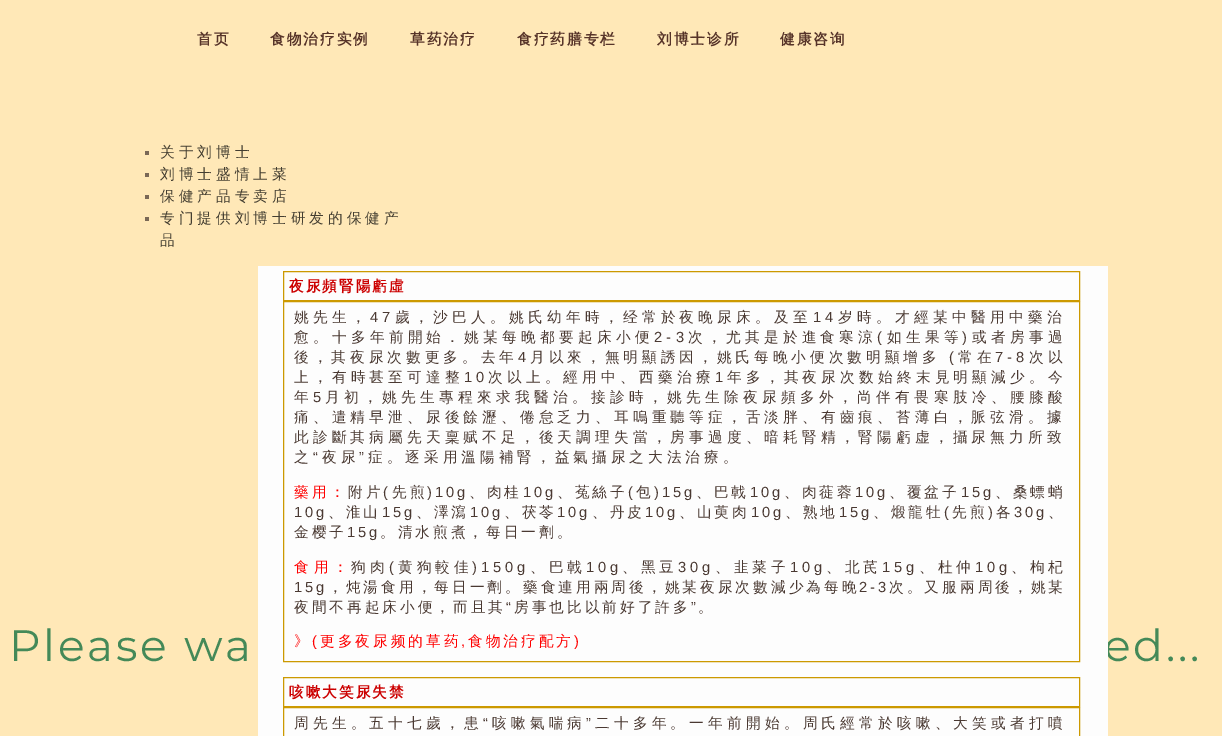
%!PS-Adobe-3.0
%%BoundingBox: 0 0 1222 736
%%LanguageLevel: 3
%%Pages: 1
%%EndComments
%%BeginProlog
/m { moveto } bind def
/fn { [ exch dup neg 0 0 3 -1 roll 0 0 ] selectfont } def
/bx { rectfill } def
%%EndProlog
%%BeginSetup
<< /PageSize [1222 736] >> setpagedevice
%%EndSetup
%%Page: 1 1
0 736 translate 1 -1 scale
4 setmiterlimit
1 0.91 0.718 setrgbcolor
0 0 1222 736 bx
/WenQuanYiZenHei-Bold 14.67 fn
0.341 0.204 0.161 setrgbcolor
197 44 m 2 0 (首页) ashow
270 44 m 2 0 (食物治疗实例) ashow
410 44 m 2 0 (草药治疗) ashow
517 44 m 2 0 (食疗药膳专栏) ashow
657 44 m 2 0 (刘博士诊所) ashow
780 44 m 2 0 (健康咨询) ashow
0.478 0.408 0.337 setrgbcolor
145 151 4 4 bx
/WenQuanYiZenHei-Medium 14.67 fn
0.267 0.243 0.192 setrgbcolor
160 157 m 4 0 (关于刘博士) ashow
0.478 0.408 0.337 setrgbcolor
145 173 4 4 bx
0.267 0.243 0.192 setrgbcolor
160 179 m 4 0 (刘博士盛情上菜) ashow
0.478 0.408 0.337 setrgbcolor
145 195 4 4 bx
0.267 0.243 0.192 setrgbcolor
160 201 m 4 0 (保健产品专卖店) ashow
0.478 0.408 0.337 setrgbcolor
145 217 4 4 bx
0.267 0.243 0.192 setrgbcolor
160 223 m 4 0 (专门提供刘博士研发的保健产) ashow
160 245 m 4 0 (品) ashow
/Montserrat-Regular 44 fn
0.267 0.537 0.345 setrgbcolor
1104 661 m 2.75 0 (ed...) ashow
0.992 setgray
258 266 850 470 bx
0.8 0.6 0 setrgbcolor
283.5 271.5 796 29 rectstroke
/WenQuanYiZenHei-Bold 14.67 fn
0.8 0 0 setrgbcolor
289 291 m 2 0 (夜尿頻腎陽虧虛) ashow
0.8 0.6 0 setrgbcolor
283.5 301.5 796 360 rectstroke
/WenQuanYiZenHei-Medium 14.67 fn
0.29 0.224 0.196 setrgbcolor
294 322 m 4.3 0 (姚先生，) ashow
/LiberationSans-Regular 14.67 fn
370 322 m 4.3 0 (47) ashow
/WenQuanYiZenHei-Medium 14.67 fn
395 322 m 4.3 0 (歲，沙巴人。姚氏幼年時，经常於夜晚尿床。及至) ashow
/LiberationSans-Regular 14.67 fn
813 322 m 4.3 0 (14) ashow
/WenQuanYiZenHei-Medium 14.67 fn
838 322 m 4.3 0 (岁時。才經某中醫用中藥治) ashow
294 342 m 4.25 0 (愈。十多年前開始．姚某每晚都要起床小便) ashow
/LiberationSans-Regular 14.67 fn
654 342 m 4.25 0 (2-3) ashow
/WenQuanYiZenHei-Medium 14.67 fn
688 342 m 4.25 0 (次，尤其是於進食寒涼) ashow
/LiberationSans-Regular 14.67 fn
877 342 m 4.25 0 (\() ashow
/WenQuanYiZenHei-Medium 14.67 fn
887 342 m 4.25 0 (如生果等) ashow
/LiberationSans-Regular 14.67 fn
962 342 m 4.25 0 (\)) ashow
/WenQuanYiZenHei-Medium 14.67 fn
972 342 m 4.25 0 (或者房事過) ashow
294 362 m 4 0 (後，其夜尿次數更多。去年) ashow
/LiberationSans-Regular 14.67 fn
518 362 m 4 0 (4) ashow
/WenQuanYiZenHei-Medium 14.67 fn
530 362 m 4 0 (月以來，無明顯誘因，姚氏每晚小便次數明顯增多) ashow
/LiberationSans-Regular 14.67 fn
949 362 m 4 0 (\() ashow
/WenQuanYiZenHei-Medium 14.67 fn
958 362 m 4 0 (常在) ashow
/LiberationSans-Regular 14.67 fn
995 362 m 4 0 (7-8) ashow
/WenQuanYiZenHei-Medium 14.67 fn
1029 362 m 4 0 (次以) ashow
294 382 m 4.2 0 (上，有時甚至可達整) ashow
/LiberationSans-Regular 14.67 fn
464 382 m 4.2 0 (10) ashow
/WenQuanYiZenHei-Medium 14.67 fn
488 382 m 4.2 0 (次以上。經用中、西藥治療) ashow
/LiberationSans-Regular 14.67 fn
715 382 m 4.2 0 (1) ashow
/WenQuanYiZenHei-Medium 14.67 fn
727 382 m 4.2 0 (年多，其夜尿次数始終末見明顯減少。今) ashow
294 402 m 4.35 0 (年) ashow
/LiberationSans-Regular 14.67 fn
313 402 m 4.35 0 (5) ashow
/WenQuanYiZenHei-Medium 14.67 fn
325 402 m 4.35 0 (月初，姚先生專程來求我醫治。接診時，姚先生除夜尿頻多外，尚伴有畏寒肢冷、腰膝酸) ashow
294 422 m 4.15 0 (痛、遣精早泄、尿後餘瀝、倦怠乏力、耳嗚重聽等症，舌淡胖、有齒痕、苔薄白，脈弦滑。據) ashow
294 442 m 4.15 0 (此診斷其病屬先天稟赋不足，後天調理失當，房事過度、暗耗腎精，腎陽虧虚，攝尿無力所致) ashow
294 462 m 4 0 (之) ashow
/LiberationSans-Regular 14.67 fn
313 462 m 4 0 (“) ashow
/WenQuanYiZenHei-Medium 14.67 fn
322 462 m 4 0 (夜尿) ashow
/LiberationSans-Regular 14.67 fn
359 462 m 4 0 (”) ashow
/WenQuanYiZenHei-Medium 14.67 fn
368 462 m 4 0 (症。逐采用溫陽補腎，益氣攝尿之大法治療。) ashow
1 0 0 setrgbcolor
294 497 m 3.5 0 (藥用：) ashow
0.29 0.224 0.196 setrgbcolor
348 497 m 3 0 (附片) ashow
/LiberationSans-Regular 14.67 fn
383 497 m 3 0 (\() ashow
/WenQuanYiZenHei-Medium 14.67 fn
392 497 m 3 0 (先煎) ashow
/LiberationSans-Regular 14.67 fn
427 497 m 3 0 (\)10g) ashow
/WenQuanYiZenHei-Medium 14.67 fn
469 497 m 3 0 (、肉桂) ashow
/LiberationSans-Regular 14.67 fn
523 497 m 3 0 (10g) ashow
/WenQuanYiZenHei-Medium 14.67 fn
557 497 m 3 0 (、菟絲子) ashow
/LiberationSans-Regular 14.67 fn
628 497 m 3 0 (\() ashow
/WenQuanYiZenHei-Medium 14.67 fn
636 497 m 3 0 (包) ashow
/LiberationSans-Regular 14.67 fn
654 497 m 3 0 (\)15g) ashow
/WenQuanYiZenHei-Medium 14.67 fn
696 497 m 3 0 (、巴戟) ashow
/LiberationSans-Regular 14.67 fn
750 497 m 3 0 (10g) ashow
/WenQuanYiZenHei-Medium 14.67 fn
784 497 m 3 0 (、肉蓰蓉) ashow
/LiberationSans-Regular 14.67 fn
855 497 m 3 0 (10g) ashow
/WenQuanYiZenHei-Medium 14.67 fn
889 497 m 3 0 (、覆盆子) ashow
/LiberationSans-Regular 14.67 fn
961 497 m 3 0 (15g) ashow
/WenQuanYiZenHei-Medium 14.67 fn
995 497 m 3 0 (、桑螵蛸) ashow
/LiberationSans-Regular 14.67 fn
294 517 m 3 0 (10g) ashow
/WenQuanYiZenHei-Medium 14.67 fn
328 517 m 3 0 (、淮山) ashow
/LiberationSans-Regular 14.67 fn
382 517 m 3 0 (15g) ashow
/WenQuanYiZenHei-Medium 14.67 fn
416 517 m 3 0 (、澤瀉) ashow
/LiberationSans-Regular 14.67 fn
470 517 m 3 0 (10g) ashow
/WenQuanYiZenHei-Medium 14.67 fn
504 517 m 3 0 (、茯苓) ashow
/LiberationSans-Regular 14.67 fn
557 517 m 3 0 (10g) ashow
/WenQuanYiZenHei-Medium 14.67 fn
592 517 m 3 0 (、丹皮) ashow
/LiberationSans-Regular 14.67 fn
645 517 m 3 0 (10g) ashow
/WenQuanYiZenHei-Medium 14.67 fn
679 517 m 3 0 (、山萸肉) ashow
/LiberationSans-Regular 14.67 fn
751 517 m 3 0 (10g) ashow
/WenQuanYiZenHei-Medium 14.67 fn
785 517 m 3 0 (、熟地) ashow
/LiberationSans-Regular 14.67 fn
839 517 m 3 0 (15g) ashow
/WenQuanYiZenHei-Medium 14.67 fn
873 517 m 3 0 (、煅龍牡) ashow
/LiberationSans-Regular 14.67 fn
944 517 m 3 0 (\() ashow
/WenQuanYiZenHei-Medium 14.67 fn
952 517 m 3 0 (先煎) ashow
/LiberationSans-Regular 14.67 fn
988 517 m 3 0 (\)) ashow
/WenQuanYiZenHei-Medium 14.67 fn
996 517 m 3 0 (各) ashow
/LiberationSans-Regular 14.67 fn
1014 517 m 3 0 (30g) ashow
/WenQuanYiZenHei-Medium 14.67 fn
1048 517 m 3 0 (、) ashow
294 537 m 3 0 (金樱子) ashow
/LiberationSans-Regular 14.67 fn
347 537 m 3 0 (15g) ashow
/WenQuanYiZenHei-Medium 14.67 fn
380 537 m 3 0 (。清水煎煮，每日一劑。) ashow
1 0 0 setrgbcolor
294 572 m 5 0 (食用：) ashow
0.29 0.224 0.196 setrgbcolor
351 572 m 4 0 (狗肉) ashow
/LiberationSans-Regular 14.67 fn
389 572 m 4 0 (\() ashow
/WenQuanYiZenHei-Medium 14.67 fn
398 572 m 4 0 (黄狗較佳) ashow
/LiberationSans-Regular 14.67 fn
472 572 m 4 0 (\)150g) ashow
/WenQuanYiZenHei-Medium 14.67 fn
530 572 m 4 0 (、巴戟) ashow
/LiberationSans-Regular 14.67 fn
586 572 m 4 0 (10g) ashow
/WenQuanYiZenHei-Medium 14.67 fn
622 572 m 4 0 (、黑豆) ashow
/LiberationSans-Regular 14.67 fn
678 572 m 4 0 (30g) ashow
/WenQuanYiZenHei-Medium 14.67 fn
715 572 m 4 0 (、韭菜子) ashow
/LiberationSans-Regular 14.67 fn
790 572 m 4 0 (10g) ashow
/WenQuanYiZenHei-Medium 14.67 fn
826 572 m 4 0 (、北芪) ashow
/LiberationSans-Regular 14.67 fn
882 572 m 4 0 (15g) ashow
/WenQuanYiZenHei-Medium 14.67 fn
919 572 m 4 0 (、杜仲) ashow
/LiberationSans-Regular 14.67 fn
975 572 m 4 0 (10g) ashow
/WenQuanYiZenHei-Medium 14.67 fn
1011 572 m 4 0 (、枸杞) ashow
/LiberationSans-Regular 14.67 fn
294 592 m 3.05 0 (15g) ashow
/WenQuanYiZenHei-Medium 14.67 fn
328 592 m 3.05 0 (，炖湯食用，每日一劑。藥食連用兩周後，姚某夜尿次數減少為每晚) ashow
/LiberationSans-Regular 14.67 fn
859 592 m 3.05 0 (2-3) ashow
/WenQuanYiZenHei-Medium 14.67 fn
889 592 m 3.05 0 (次。又服兩周後，姚某) ashow
294 612 m 3 0 (夜間不再起床小便，而且其) ashow
/LiberationSans-Regular 14.67 fn
506 612 m 3 0 (“) ashow
/WenQuanYiZenHei-Medium 14.67 fn
514 612 m 3 0 (房事也比以前好了許多) ashow
/LiberationSans-Regular 14.67 fn
691 612 m 3 0 (”) ashow
/WenQuanYiZenHei-Medium 14.67 fn
698 612 m 3 0 (。) ashow
1 0 0 setrgbcolor
294 646 m 3 0 (》) ashow
/LiberationSans-Regular 14.67 fn
312 646 m 3 0 (\() ashow
/WenQuanYiZenHei-Medium 14.67 fn
320 646 m 3 0 (更多夜尿频的草药) ashow
/LiberationSans-Regular 14.67 fn
461 646 m 3 0 (,) ashow
/WenQuanYiZenHei-Medium 14.67 fn
468 646 m 3 0 (食物治疗配方) ashow
/LiberationSans-Regular 14.67 fn
574 646 m 3 0 (\)) ashow
0.8 0.6 0 setrgbcolor
283.5 677.5 796 29 rectstroke
/WenQuanYiZenHei-Bold 14.67 fn
0.8 0 0 setrgbcolor
289 697 m 2 0 (咳嗽大笑尿失禁) ashow
0.8 0.6 0 setrgbcolor
283.5 707.5 796 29 rectstroke
/WenQuanYiZenHei-Medium 14.67 fn
0.29 0.224 0.196 setrgbcolor
294 728 m 4.2 0 (周先生。五十七歲，患) ashow
/LiberationSans-Regular 14.67 fn
483 728 m 4.2 0 (“) ashow
/WenQuanYiZenHei-Medium 14.67 fn
492 728 m 4.2 0 (咳嗽氣喘病) ashow
/LiberationSans-Regular 14.67 fn
586 728 m 4.2 0 (”) ashow
/WenQuanYiZenHei-Medium 14.67 fn
595 728 m 4.2 0 (二十多年。一年前開始。周氏經常於咳嗽、大笑或者打噴) ashow
/Montserrat-Regular 44 fn
0.267 0.537 0.345 setrgbcolor
9 661 m 2.75 0 (Please wa) ashow
showpage
%%EOF
